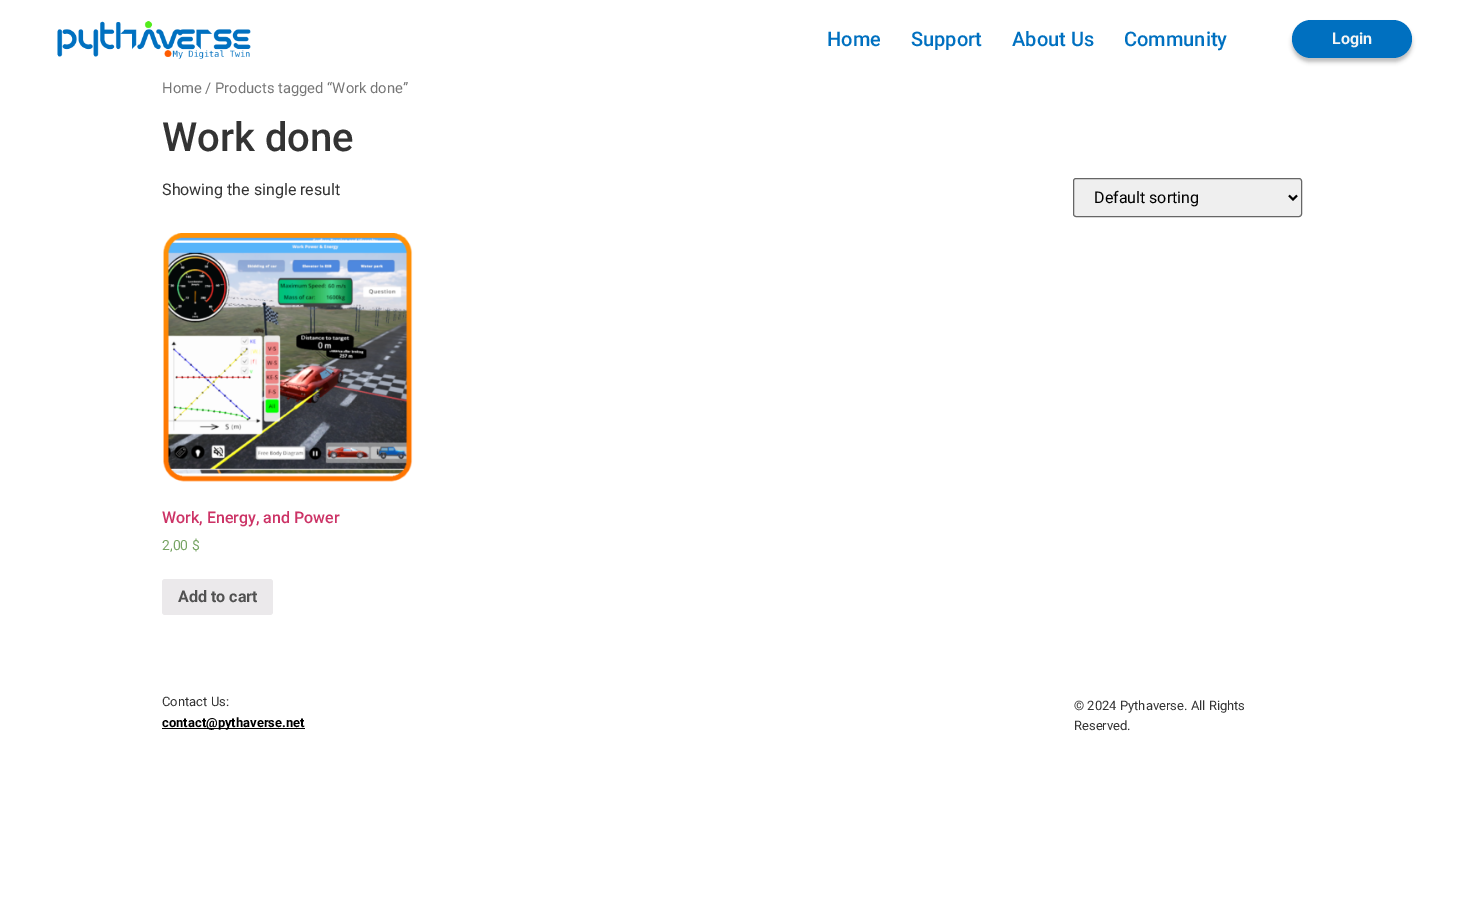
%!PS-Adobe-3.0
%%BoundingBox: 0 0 1464 913
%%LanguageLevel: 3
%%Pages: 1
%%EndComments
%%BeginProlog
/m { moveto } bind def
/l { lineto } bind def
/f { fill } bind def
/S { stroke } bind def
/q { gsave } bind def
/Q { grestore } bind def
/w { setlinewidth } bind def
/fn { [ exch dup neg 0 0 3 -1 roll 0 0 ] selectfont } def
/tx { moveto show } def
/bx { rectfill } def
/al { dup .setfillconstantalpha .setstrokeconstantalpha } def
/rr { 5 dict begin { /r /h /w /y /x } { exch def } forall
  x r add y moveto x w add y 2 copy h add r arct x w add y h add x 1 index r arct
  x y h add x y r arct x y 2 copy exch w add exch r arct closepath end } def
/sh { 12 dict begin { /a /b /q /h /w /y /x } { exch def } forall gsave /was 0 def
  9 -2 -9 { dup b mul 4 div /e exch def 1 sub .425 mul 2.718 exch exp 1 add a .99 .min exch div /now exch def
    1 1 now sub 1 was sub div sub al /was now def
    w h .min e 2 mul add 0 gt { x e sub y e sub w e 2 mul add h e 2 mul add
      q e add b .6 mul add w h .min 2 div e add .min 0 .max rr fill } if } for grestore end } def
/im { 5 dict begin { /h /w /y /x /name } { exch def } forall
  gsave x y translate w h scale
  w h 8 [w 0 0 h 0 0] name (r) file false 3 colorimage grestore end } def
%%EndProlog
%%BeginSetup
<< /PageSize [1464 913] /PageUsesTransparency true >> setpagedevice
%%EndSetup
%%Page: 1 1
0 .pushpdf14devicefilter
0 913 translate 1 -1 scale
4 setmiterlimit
1 setgray
0 0 1464 913 bx
(image0.raw) 57 21 194 38 im
/Roboto-Medium 20 fn
0 0.439 0.753 setrgbcolor
(Home) 827 46 tx
(Support) 911 46 tx
(About Us) 1012 46 tx
(Community) 1124 46 tx
0 setgray
1292 24 120 38 19 2 0.25 sh
0 0.439 0.753 setrgbcolor
1292 20 120 38 19 rr f
/Roboto-Bold 16 fn
0.961 setgray
(Login) 1332 44 tx
/Roboto-Regular 14.75 fn
0.463 setgray
(Home / Products tagged “Work done”) 162 93 tx
/Roboto-Medium 40 fn
0.2 setgray
(Work done) 162 151 tx
/Roboto-Regular 16 fn
(Showing the single result) 162 195 tx
0.937 setgray
1073.5 178.5 228 38 2.5 rr q f Q
0.4 setgray
S
0 setgray
2 w
1289 195.5 m 1293 199.5 l 1297 195.5 l S
(Default sorting) 1094 203 tx
(image1.raw) 163 233 250 249 im
/Roboto-Medium 16 fn
0.8 0.2 0.4 setrgbcolor
(Work, Energy, and Power) 162 523 tx
/Roboto-Regular 14 fn
0.467 0.643 0.392 setrgbcolor
(2,00 $) 162 550 tx
0.922 0.914 0.922 setrgbcolor
162 579 111 36 3 rr f
/Roboto-Bold 16 fn
0.318 setgray
(Add to cart) 178 602 tx
/Roboto-Regular 13 fn
0.2 setgray
(Contact Us:) 162 706 tx
0 setgray
162 728 143 1 bx
/Roboto-Bold 13 fn
(contact@pythaverse.net) 162 727 tx
/Roboto-Regular 13 fn
0.2 setgray
(© 2024 Pythaverse. All Rights) 1074 710 tx
(Reserved.) 1074 730 tx
.poppdf14devicefilter showpage
%%EOF
